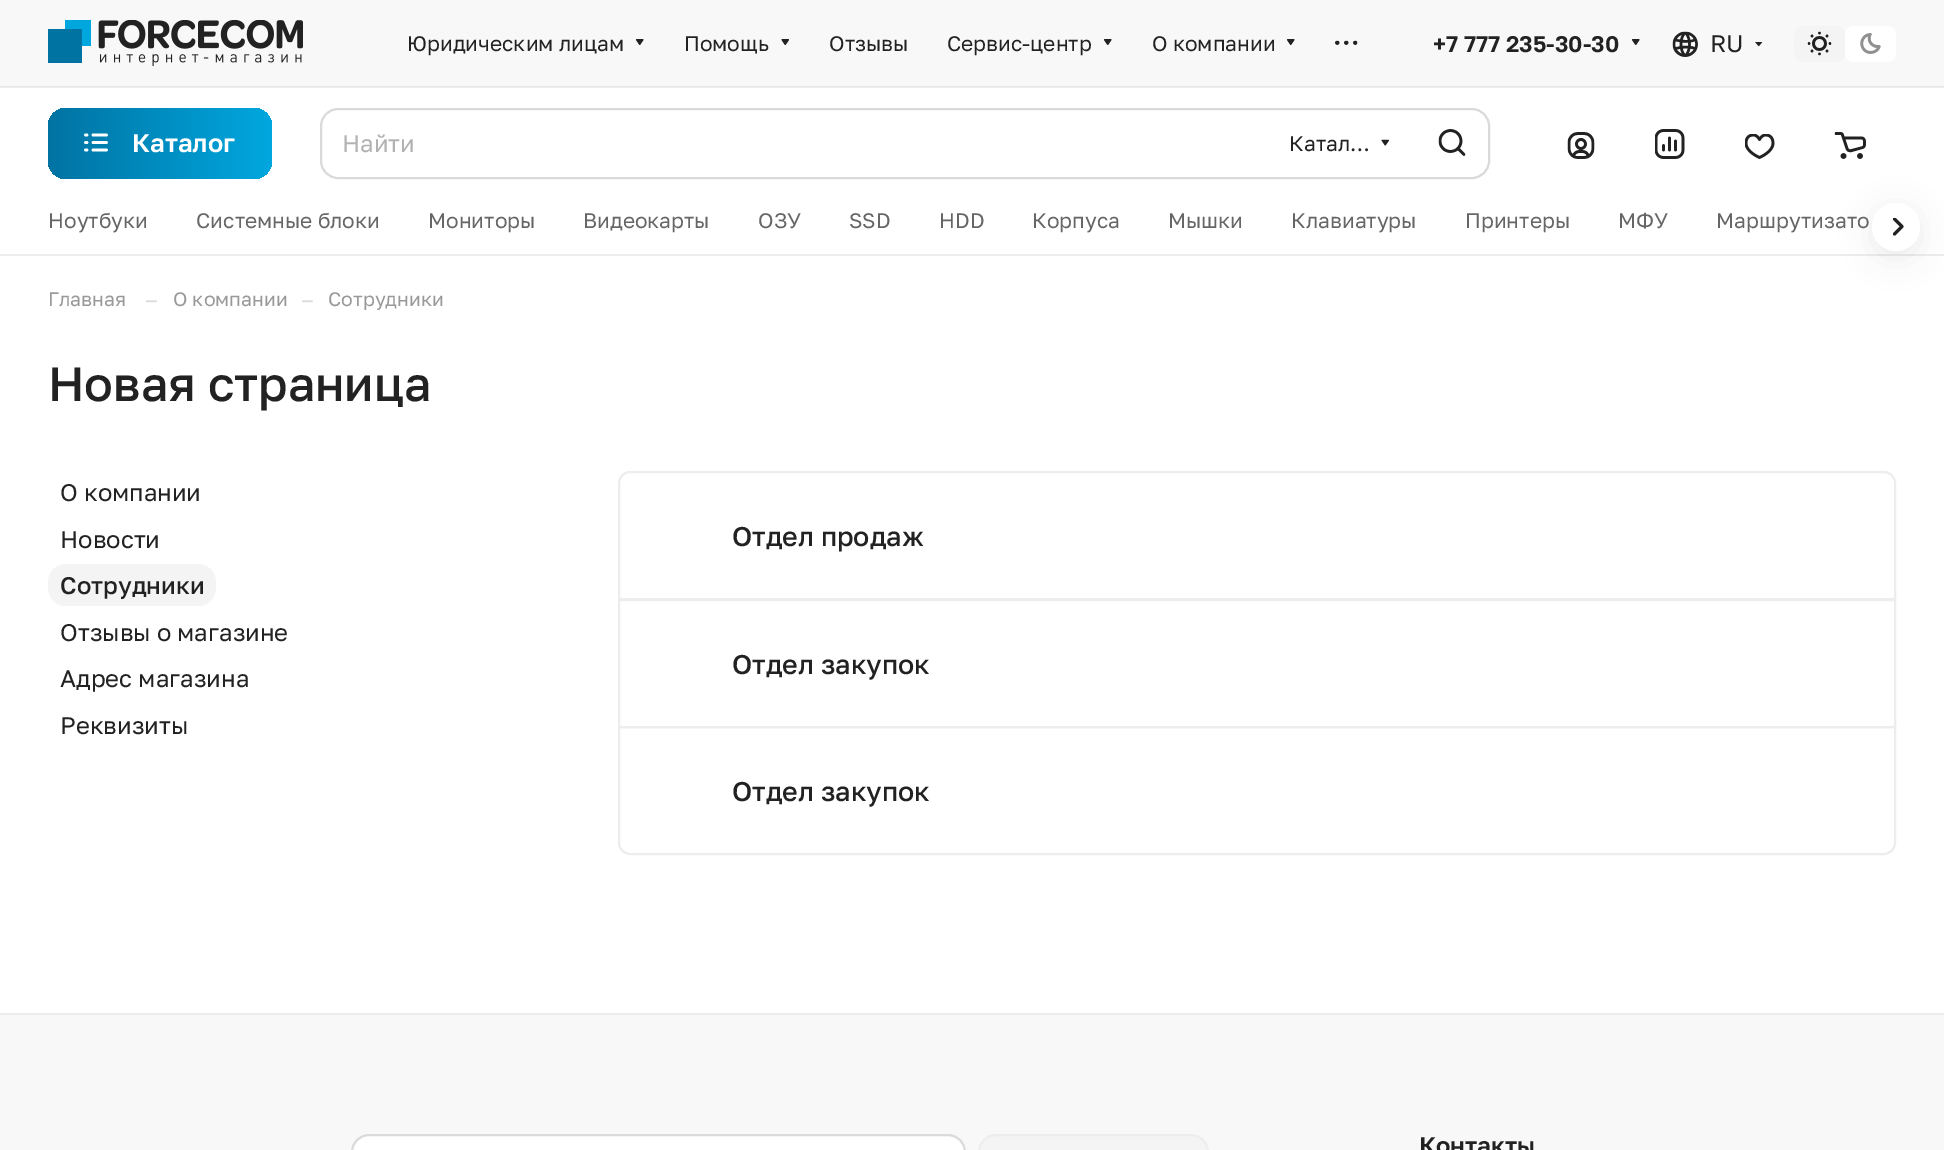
%!PS-Adobe-3.0
%%BoundingBox: 0 0 1944 1150
%%LanguageLevel: 3
%%Pages: 1
%%EndComments
%%BeginProlog
/m { moveto } bind def
/l { lineto } bind def
/c { curveto } bind def
/h { closepath } bind def
/f { fill } bind def
/S { stroke } bind def
/q { gsave } bind def
/Q { grestore } bind def
/w { setlinewidth } bind def
/fn { [ exch dup neg 0 0 3 -1 roll 0 0 ] selectfont } def
/tx { moveto show } def
/bx { rectfill } def
/al { dup .setfillconstantalpha .setstrokeconstantalpha } def
/ci { newpath 0 360 arc closepath } def
/rr { 5 dict begin { /r /h /w /y /x } { exch def } forall
  x r add y moveto x w add y 2 copy h add r arct x w add y h add x 1 index r arct
  x y h add x y r arct x y 2 copy exch w add exch r arct closepath end } def
/sh { 12 dict begin { /a /b /q /h /w /y /x } { exch def } forall gsave /was 0 def
  9 -2 -9 { dup b mul 4 div /e exch def 1 sub .425 mul 2.718 exch exp 1 add a .99 .min exch div /now exch def
    1 1 now sub 1 was sub div sub al /was now def
    w h .min e 2 mul add 0 gt { x e sub y e sub w e 2 mul add h e 2 mul add
      q e add b .6 mul add w h .min 2 div e add .min 0 .max rr fill } if } for grestore end } def
/im { 5 dict begin { /h /w /y /x /name } { exch def } forall
  gsave x y translate w h scale
  w h 8 [w 0 0 h 0 0] name (r) file false 3 colorimage grestore end } def
%%EndProlog
%%BeginSetup
<< /PageSize [1944 1150] /PageUsesTransparency true >> setpagedevice
%%EndSetup
%%Page: 1 1
0 .pushpdf14devicefilter
0 1150 translate 1 -1 scale
4 setmiterlimit
1 setgray
0 0 1944 1150 bx
0.929 setgray
0 87 1944 1 bx
0 254 1944 2 bx
0.973 setgray
0 0 1944 86 bx
0.906 setgray
0 86 1944 1 bx
(image0.raw) 48 20 255 46 im
/GolosText-Regular 21 fn
0.133 setgray
(Юридическим лицам) 407 51 tx
(image1.raw) 636 39 8 6 im
(Помощь) 684 51 tx
(image2.raw) 781 39 8 6 im
(Отзывы) 829 51 tx
(Сервис-центр) 947 51 tx
(image1.raw) 1104 39 8 6 im
(О компании) 1152 51 tx
(image1.raw) 1287 39 8 6 im
(image3.raw) 1335 40 23 5 im
/GolosText-SemiBold 22.5 fn
(+7 777 235-30-30) 1433 52 tx
(image1.raw) 1632 39 8 6 im
(image4.raw) 1672 31 26 26 im
/GolosText-Regular 24 fn
(RU) 1710 52 tx
(image5.raw) 1755 42 8 5 im
0.957 setgray
1794 26 51 36 9 rr f
(image6.raw) 1807 31 25 25 im
1 setgray
1845 26 51 36 9 rr f
(image7.raw) 1860 33 21 21 im
q 48 108 224 71 18 rr clip newpath
<< /ShadingType 2 /ColorSpace /DeviceRGB /Coords [48 143 272 143] /Extend [true true] /Function << /FunctionType 2 /Domain [0 1] /C0 [0 0.451 0.635] /C1 [0 0.655 0.875] /N 1 >> >> shfill Q
(image8.raw) 84 133 24 19 im
/GolosText-SemiBold 25.5 fn
(Каталог) 132 152 tx
0.855 setgray
2 w
321 109 1168 69 17 rr S
/GolosText-Regular 24 fn
0.698 setgray
(Найти) 342 152 tx
/GolosText-Regular 21 fn
0.133 setgray
(Катал…) 1289 151 tx
(image9.raw) 1381 139 8 7 im
(image10.raw) 1438 129 28 27 im
(image11.raw) 1567 132 28 27 im
(image12.raw) 1655 129 30 30 im
(image13.raw) 1745 134 30 25 im
(image14.raw) 1834 132 32 27 im
0.4 setgray
(Ноутбуки) 48 228 tx
(Системные блоки) 196 228 tx
(Мониторы) 428 228 tx
(Видеокарты) 583 228 tx
(ОЗУ) 758 228 tx
(SSD) 849 228 tx
(HDD) 939 228 tx
(Корпуса) 1032 228 tx
(Мышки) 1168 228 tx
(Клавиатуры) 1291 228 tx
(Принтеры) 1465 228 tx
(МФУ) 1618 228 tx
(Маршрутизато) 1716 228 tx
0 setgray
1872 210 48 48 24 15 0.07 sh
1 setgray
1896 227 24 ci f
q
1893 218 11 18 rectclip
0.133 setgray
3 w
1 setlinecap
1 setlinejoin
1894.5 219 m 1902 226.5 l 1894.5 234 l S
Q
/GolosText-Regular 19.5 fn
0.6 setgray
(Главная) 48 306 tx
/GolosText-Regular 24 fn
0.867 setgray
(–) 145 308 tx
/GolosText-Regular 19.5 fn
0.6 setgray
(О компании) 173 306 tx
/GolosText-Regular 24 fn
0.867 setgray
(–) 301 308 tx
/GolosText-Regular 19.5 fn
0.6 setgray
(Сотрудники) 328 306 tx
/GolosText-Medium 48 fn
0.133 setgray
(Новая страница) 48 401 tx
/GolosText-Regular 24 fn
(О компании) 60 501 tx
(Новости) 60 548 tx
0.957 setgray
48 564 168 42 18 rr f
/GolosText-Medium 24 fn
0.133 setgray
(Сотрудники) 60 594 tx
/GolosText-Regular 24 fn
(Отзывы о магазине) 60 641 tx
(Адрес магазина) 60 687 tx
(Реквизиты) 60 734 tx
0.929 setgray
630 472 m 1884 472 l 1890 472 1895 477 1895 483 c 1895 599 l 619 599 l 619 483 l 619 477 624 472 630 472 c h S
/GolosText-Medium 27 fn
0.133 setgray
(Отдел продаж) 732 546 tx
0.929 setgray
619 600 1276 127 rectstroke
0.133 setgray
(Отдел закупок) 732 674 tx
0.929 setgray
619 727 m 1895 727 l 1895 843 l 1895 849 1890 854 1884 854 c 630 854 l 624 854 619 849 619 843 c h S
0.133 setgray
(Отдел закупок) 732 801 tx
0.973 setgray
0 1015 1944 135 bx
0.929 setgray
0 1013 1944 2 bx
1 setgray
352 1135 613 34 17 rr q f Q
0.855 setgray
S
0.957 setgray
979 1135 229 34 17 rr q f Q
0.929 setgray
S
/GolosText-SemiBold 24 fn
0.133 setgray
(Контакты) 1419 1154 tx
.poppdf14devicefilter showpage
%%EOF
